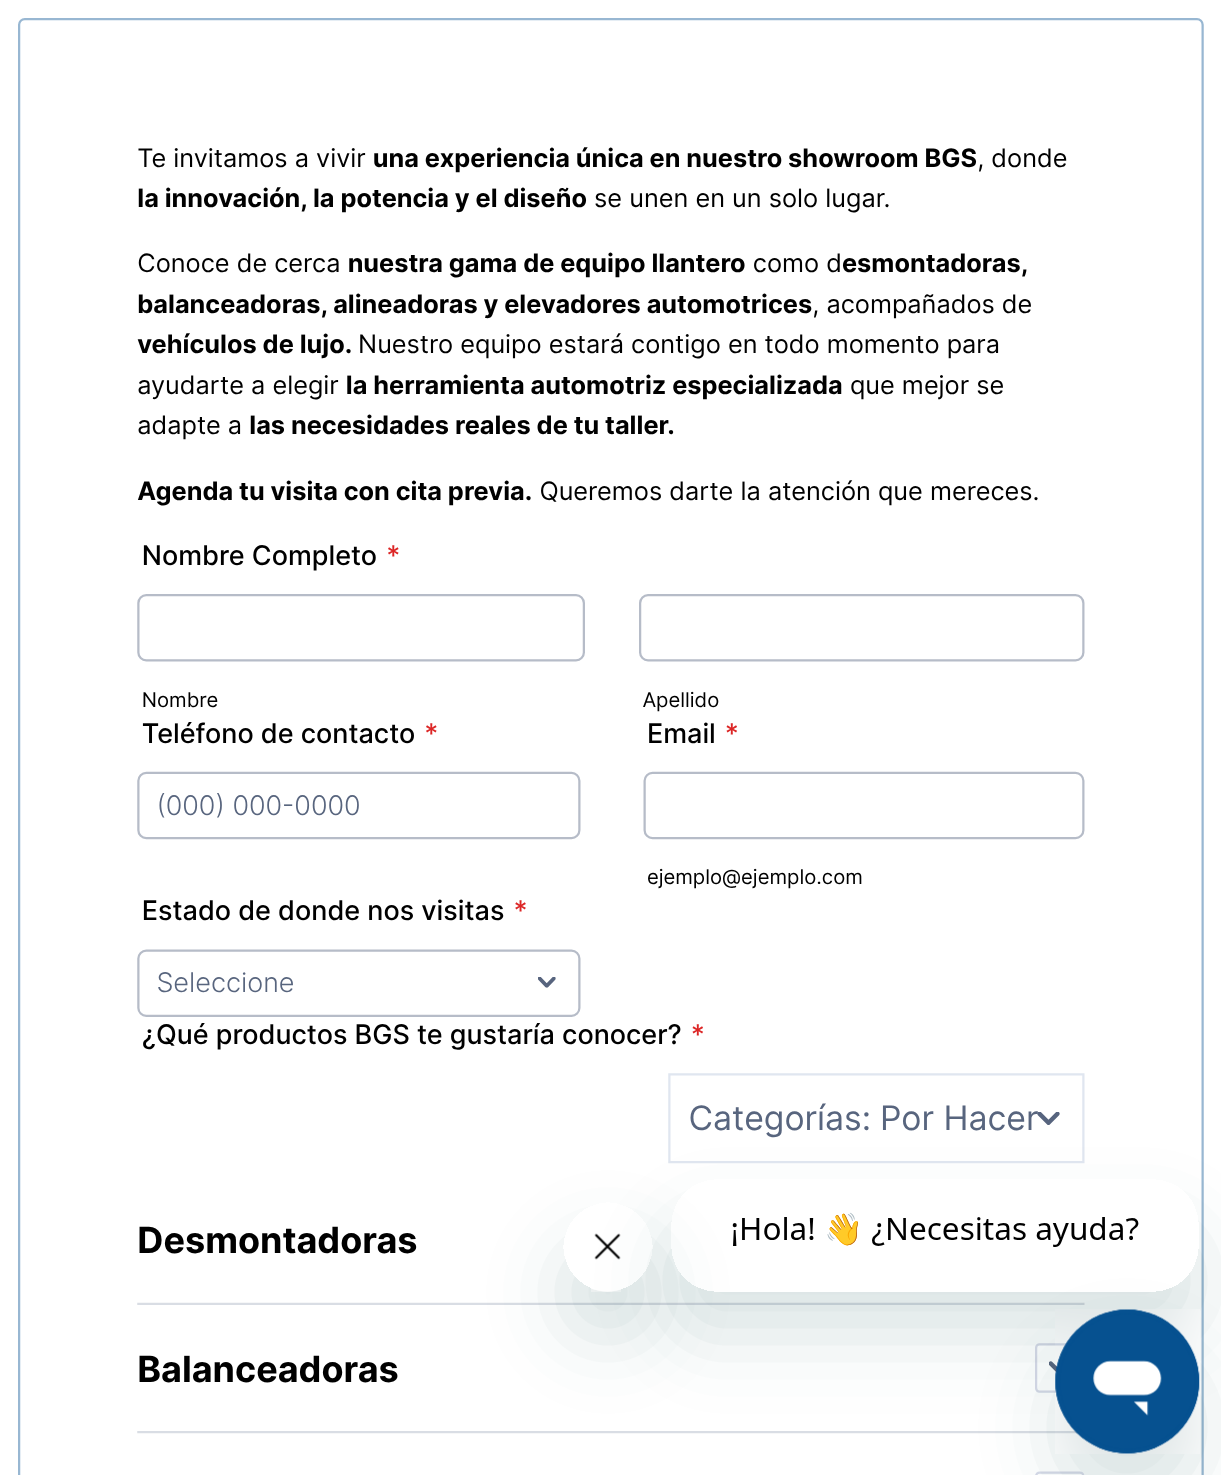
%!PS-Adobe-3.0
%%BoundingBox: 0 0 1221 1475
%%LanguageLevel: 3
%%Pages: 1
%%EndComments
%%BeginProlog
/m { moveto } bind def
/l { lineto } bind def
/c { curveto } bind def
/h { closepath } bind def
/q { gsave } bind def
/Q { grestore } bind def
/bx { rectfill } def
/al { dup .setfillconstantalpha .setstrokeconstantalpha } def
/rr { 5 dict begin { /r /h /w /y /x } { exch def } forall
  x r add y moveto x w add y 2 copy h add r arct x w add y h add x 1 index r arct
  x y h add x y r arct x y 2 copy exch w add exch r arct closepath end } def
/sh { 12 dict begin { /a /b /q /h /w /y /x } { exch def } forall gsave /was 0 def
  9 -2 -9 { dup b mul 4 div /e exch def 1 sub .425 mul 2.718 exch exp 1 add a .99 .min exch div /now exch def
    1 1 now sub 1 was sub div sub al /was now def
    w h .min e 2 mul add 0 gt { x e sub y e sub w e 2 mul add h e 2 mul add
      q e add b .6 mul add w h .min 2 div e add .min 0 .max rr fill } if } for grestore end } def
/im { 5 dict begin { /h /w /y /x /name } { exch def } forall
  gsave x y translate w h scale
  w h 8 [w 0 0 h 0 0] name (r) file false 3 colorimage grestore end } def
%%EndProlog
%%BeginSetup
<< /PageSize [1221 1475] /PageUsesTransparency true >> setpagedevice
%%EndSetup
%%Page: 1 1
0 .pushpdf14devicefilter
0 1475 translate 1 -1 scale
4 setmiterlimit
1 setgray
0 0 1221 1475 bx
(image0.raw) 18 18 1186 1457 im
q
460 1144 m 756 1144 l 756 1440 l 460 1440 l h 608 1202 m 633 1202 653 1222 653 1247 c 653 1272 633 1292 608 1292 c 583 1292 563 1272 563 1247 c 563 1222 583 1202 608 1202 c h eoclip newpath
0.09 0.286 0.302 setrgbcolor
563 1247 90 90 45 34 0.15 sh
Q
(image2.raw) 591 1233 30 59 im
q
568 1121 m 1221 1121 l 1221 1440 l 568 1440 l h 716 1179 m 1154 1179 l 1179 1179 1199 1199 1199 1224 c 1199 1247 l 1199 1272 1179 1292 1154 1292 c 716 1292 l 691 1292 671 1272 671 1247 c 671 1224 l 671 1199 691 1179 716 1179 c h eoclip newpath
0.09 0.286 0.302 setrgbcolor
671 1224 528 113 45 34 0.15 sh
Q
(image1.raw) 732 1212 407 53 im
0.09 0.286 0.302 setrgbcolor
1055 1355 144 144 72 34 0.15 sh
(image3.raw) 1055 1309 145 145 im
.poppdf14devicefilter showpage
%%EOF
